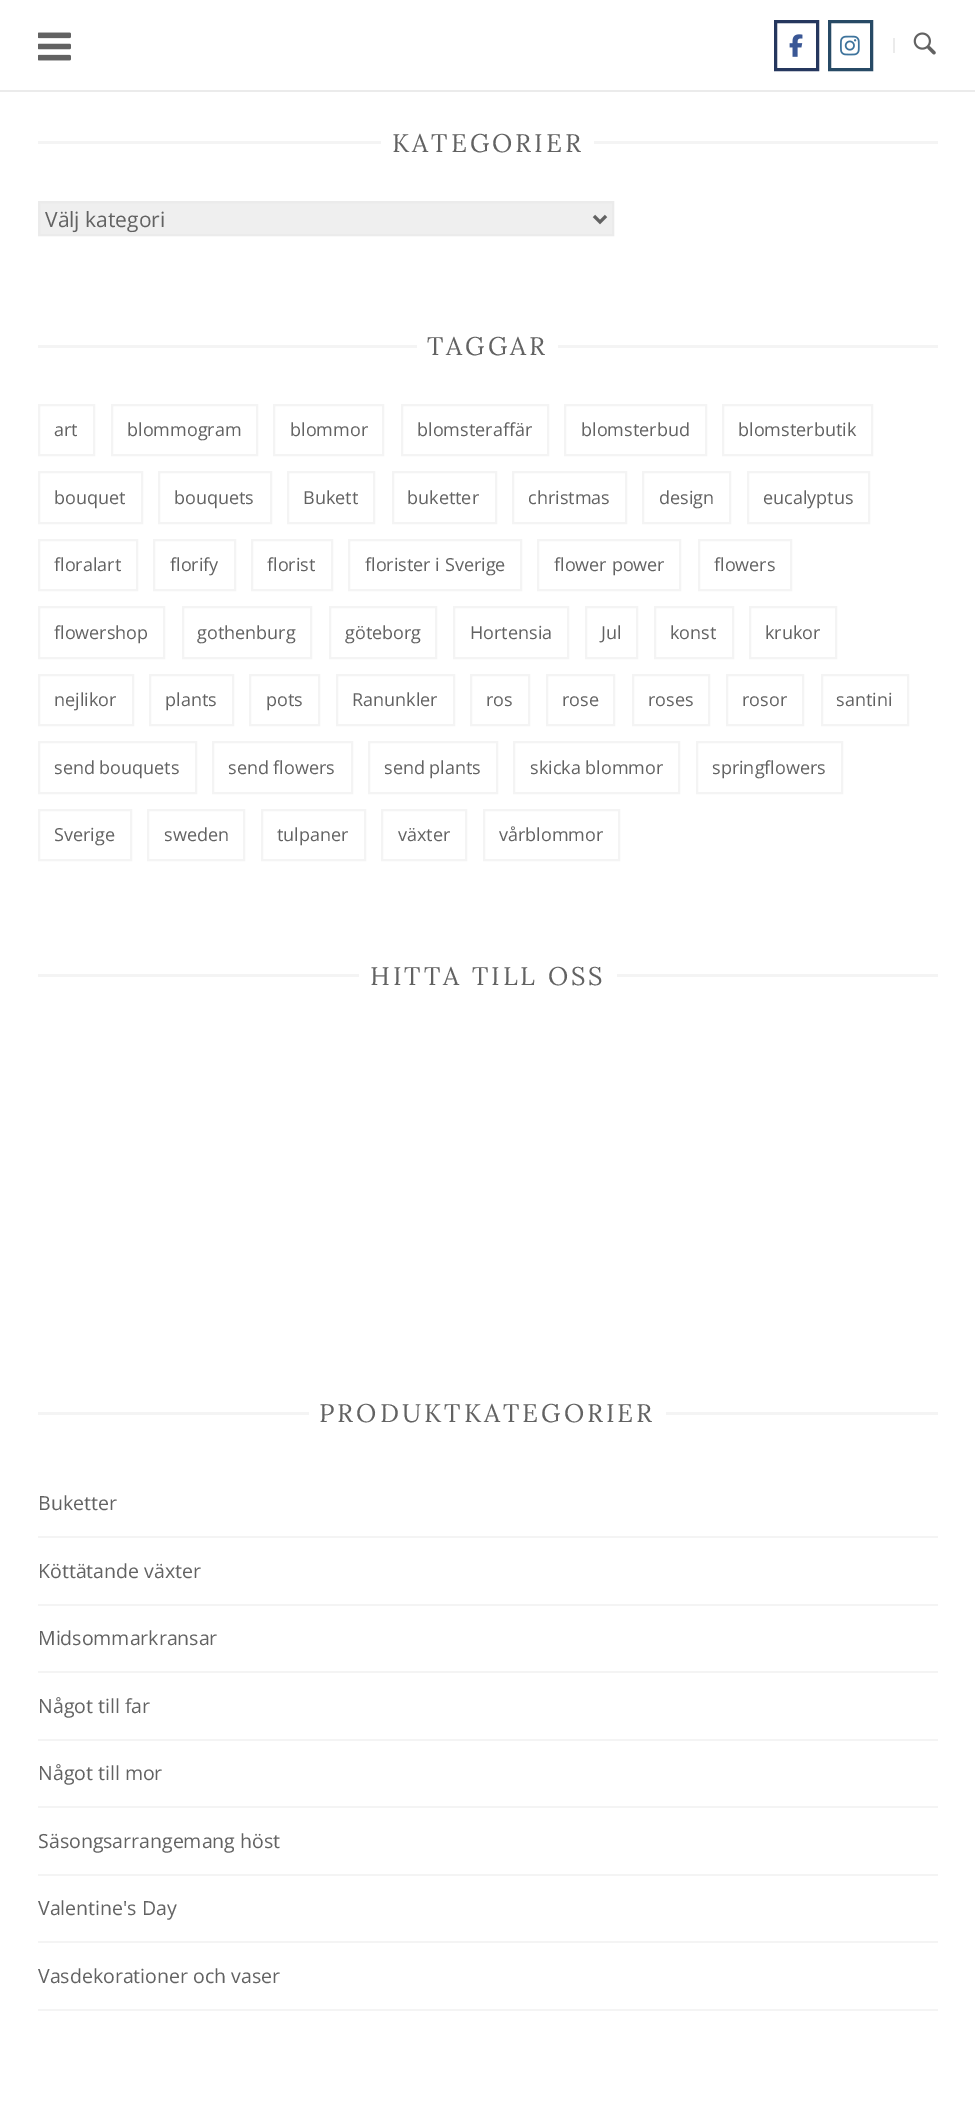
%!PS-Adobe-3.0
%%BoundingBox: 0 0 975 2116
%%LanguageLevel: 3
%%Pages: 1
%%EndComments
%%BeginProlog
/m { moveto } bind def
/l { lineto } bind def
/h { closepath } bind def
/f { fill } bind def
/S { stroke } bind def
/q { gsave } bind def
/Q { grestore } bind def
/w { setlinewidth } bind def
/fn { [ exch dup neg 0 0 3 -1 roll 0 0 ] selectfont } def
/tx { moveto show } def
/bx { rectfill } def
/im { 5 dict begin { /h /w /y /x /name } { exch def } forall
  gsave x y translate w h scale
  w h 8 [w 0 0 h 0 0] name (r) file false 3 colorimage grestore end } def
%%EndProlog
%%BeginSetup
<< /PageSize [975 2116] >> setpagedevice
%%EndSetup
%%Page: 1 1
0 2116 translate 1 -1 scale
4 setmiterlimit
1 setgray
0 0 975 2116 bx
0.922 setgray
0 90 975 2 bx
(image0.raw) 38 32 33 29 im
0.145 0.216 0.369 setrgbcolor
3 w
775.5 21.5 42 48 rectstroke
(image1.raw) 789 34 14 23 im
0.153 0.29 0.396 setrgbcolor
829.5 21.5 42 48 rectstroke
(image2.raw) 840 35 20 21 im
0.922 setgray
893 38 2 15 bx
(image3.raw) 913 32 23 23 im
0.957 setgray
38 141 343 3 bx
/Lora-Regular 25.5 fn
0.384 setgray
392 152 m 3 0 (KATEGORIER) ashow
0.957 setgray
594 141 344 3 bx
0.937 setgray
39 202 m 613 202 l 613 235 l 39 235 l h q f Q
0.922 setgray
2 w
S
0.384 setgray
3 w
594 216 m 600 222 l 606 216 l S
/OpenSans-Regular 21 fn
(Välj kategori) 45 227 tx
0.957 setgray
38 345 379 3 bx
/Lora-Regular 25.5 fn
0.384 setgray
427 355 m 3 0 (TAGGAR) ashow
0.957 setgray
558 345 380 3 bx
2 w
39 405 55 50 rectstroke
/OpenSans-Regular 18 fn
0.384 setgray
(art) 54 436 tx
0.957 setgray
112 405 145 50 rectstroke
0.384 setgray
(blommogram) 127 436 tx
0.957 setgray
274 405 109 50 rectstroke
0.384 setgray
(blommor) 290 436 tx
0.957 setgray
402 405 146 50 rectstroke
0.384 setgray
(blomsteraffär) 417 436 tx
0.957 setgray
565 405 141 50 rectstroke
0.384 setgray
(blomsterbud) 581 436 tx
0.957 setgray
723 405 149 50 rectstroke
0.384 setgray
(blomsterbutik) 738 436 tx
0.957 setgray
39 472 103 51 rectstroke
0.384 setgray
(bouquet) 54 504 tx
0.957 setgray
159 472 112 51 rectstroke
0.384 setgray
(bouquets) 174 504 tx
0.957 setgray
288 472 86 51 rectstroke
0.384 setgray
(Bukett) 303 504 tx
0.957 setgray
393 472 103 51 rectstroke
0.384 setgray
(buketter) 407 504 tx
0.957 setgray
513 472 113 51 rectstroke
0.384 setgray
(christmas) 528 504 tx
0.957 setgray
643 472 87 51 rectstroke
0.384 setgray
(design) 659 504 tx
0.957 setgray
748 472 121 51 rectstroke
0.384 setgray
(eucalyptus) 763 504 tx
0.957 setgray
39 540 98 50 rectstroke
0.384 setgray
(floralart) 54 571 tx
0.957 setgray
154 540 81 50 rectstroke
0.384 setgray
(florify) 170 571 tx
0.957 setgray
252 540 80 50 rectstroke
0.384 setgray
(florist) 267 571 tx
0.957 setgray
349 540 172 50 rectstroke
0.384 setgray
(florister i Sverige) 365 571 tx
0.957 setgray
538 540 142 50 rectstroke
0.384 setgray
(flower power) 554 571 tx
0.957 setgray
699 540 92 50 rectstroke
0.384 setgray
(flowers) 714 571 tx
0.957 setgray
39 607 125 51 rectstroke
0.384 setgray
(flowershop) 54 639 tx
0.957 setgray
183 607 128 51 rectstroke
0.384 setgray
(gothenburg) 197 639 tx
0.957 setgray
330 607 106 51 rectstroke
0.384 setgray
(göteborg) 345 639 tx
0.957 setgray
454 607 114 51 rectstroke
0.384 setgray
(Hortensia) 470 639 tx
0.957 setgray
586 607 51 51 rectstroke
0.384 setgray
(Jul) 601 639 tx
0.957 setgray
655 607 78 51 rectstroke
0.384 setgray
(konst) 670 639 tx
0.957 setgray
750 607 86 51 rectstroke
0.384 setgray
(krukor) 765 639 tx
0.957 setgray
39 675 94 50 rectstroke
0.384 setgray
(nejlikor) 54 706 tx
0.957 setgray
150 675 83 50 rectstroke
0.384 setgray
(plants) 165 706 tx
0.957 setgray
250 675 69 50 rectstroke
0.384 setgray
(pots) 266 706 tx
0.957 setgray
337 675 117 50 rectstroke
0.384 setgray
(Ranunkler) 352 706 tx
0.957 setgray
471 675 58 50 rectstroke
0.384 setgray
(ros) 486 706 tx
0.957 setgray
547 675 67 50 rectstroke
0.384 setgray
(rose) 562 706 tx
0.957 setgray
633 675 76 50 rectstroke
0.384 setgray
(roses) 648 706 tx
0.957 setgray
727 675 76 50 rectstroke
0.384 setgray
(rosor) 742 706 tx
0.957 setgray
822 675 86 50 rectstroke
0.384 setgray
(santini) 836 706 tx
0.957 setgray
39 742 157 51 rectstroke
0.384 setgray
(send bouquets) 54 774 tx
0.957 setgray
213 742 139 51 rectstroke
0.384 setgray
(send flowers) 228 774 tx
0.957 setgray
369 742 128 51 rectstroke
0.384 setgray
(send plants) 384 774 tx
0.957 setgray
514 742 165 51 rectstroke
0.384 setgray
(skicka blommor) 530 774 tx
0.957 setgray
697 742 145 51 rectstroke
0.384 setgray
(springflowers) 712 774 tx
0.957 setgray
39 810 92 50 rectstroke
0.384 setgray
(Sverige) 54 841 tx
0.957 setgray
148 810 96 50 rectstroke
0.384 setgray
(sweden) 164 841 tx
0.957 setgray
262 810 103 50 rectstroke
0.384 setgray
(tulpaner) 277 841 tx
0.957 setgray
382 810 84 50 rectstroke
0.384 setgray
(växter) 398 841 tx
0.957 setgray
484 810 135 50 rectstroke
0.384 setgray
(vårblommor) 499 841 tx
0.957 setgray
38 974 321 3 bx
/Lora-Regular 25.5 fn
0.384 setgray
370 985 m 3 0 (HITTA TILL OSS) ashow
0.957 setgray
617 974 321 3 bx
38 1412 271 3 bx
0.384 setgray
319 1422 m 3 0 (PRODUKTKATEGORIER) ashow
0.957 setgray
666 1412 272 3 bx
38 1536 900 2 bx
/OpenSans-Regular 19.5 fn
0.384 setgray
(Buketter) 38 1510 tx
0.957 setgray
38 1604 900 2 bx
0.384 setgray
(Köttätande växter) 38 1578 tx
0.957 setgray
38 1671 900 2 bx
0.384 setgray
(Midsommarkransar) 38 1645 tx
0.957 setgray
38 1739 900 2 bx
0.384 setgray
(Något till far) 38 1713 tx
0.957 setgray
38 1806 900 2 bx
0.384 setgray
(Något till mor) 38 1780 tx
0.957 setgray
38 1874 900 2 bx
0.384 setgray
(Säsongsarrangemang höst) 38 1848 tx
0.957 setgray
38 1941 900 2 bx
0.384 setgray
(Valentine's Day) 38 1915 tx
0.957 setgray
38 2009 900 2 bx
0.384 setgray
(Vasdekorationer och vaser) 38 1983 tx
showpage
%%EOF
